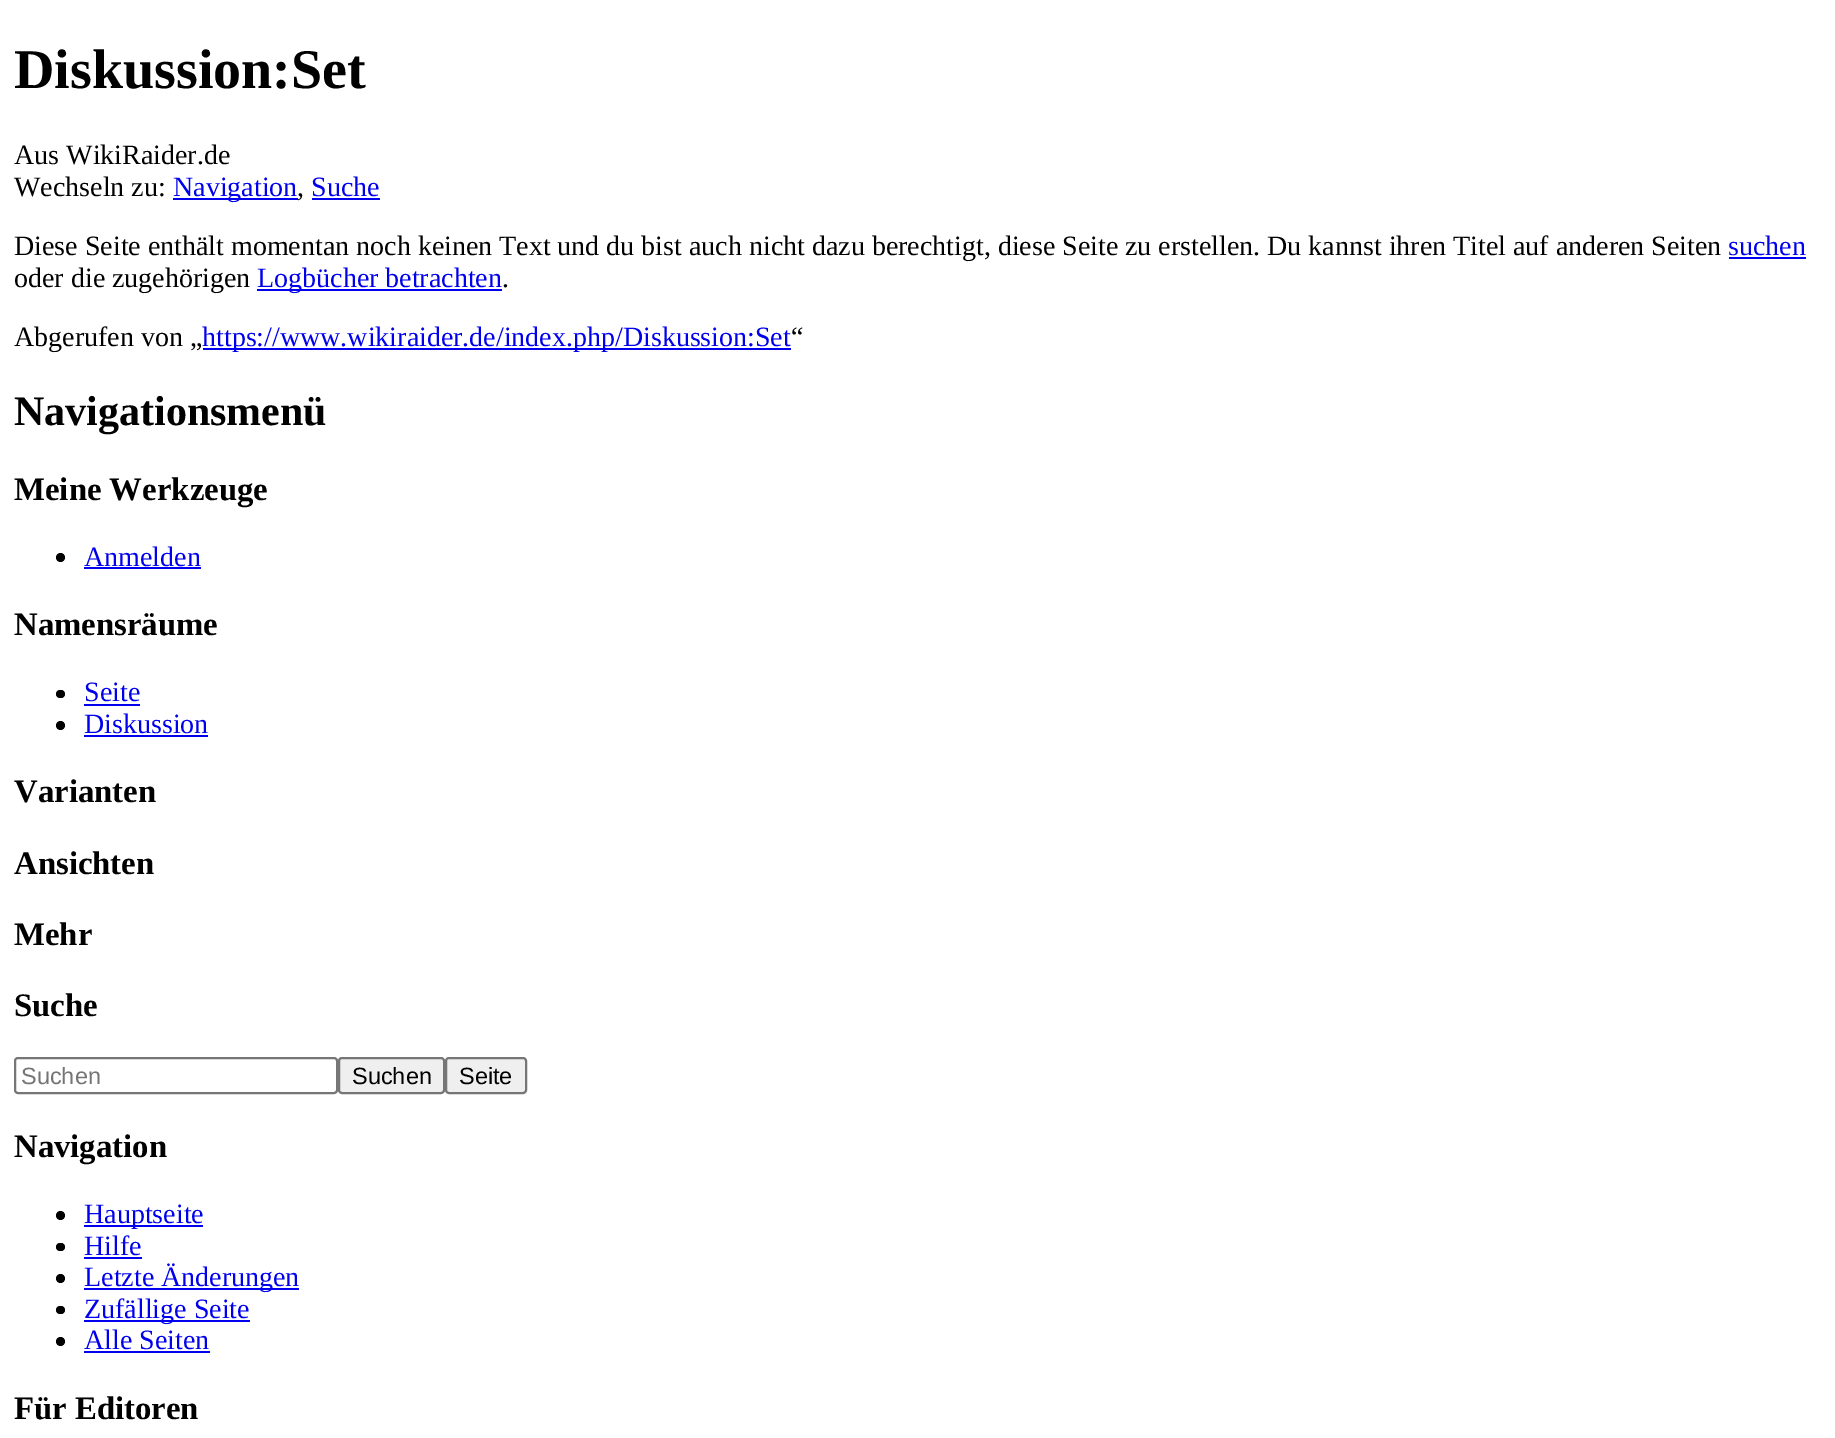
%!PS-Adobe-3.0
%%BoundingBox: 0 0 1835 1438
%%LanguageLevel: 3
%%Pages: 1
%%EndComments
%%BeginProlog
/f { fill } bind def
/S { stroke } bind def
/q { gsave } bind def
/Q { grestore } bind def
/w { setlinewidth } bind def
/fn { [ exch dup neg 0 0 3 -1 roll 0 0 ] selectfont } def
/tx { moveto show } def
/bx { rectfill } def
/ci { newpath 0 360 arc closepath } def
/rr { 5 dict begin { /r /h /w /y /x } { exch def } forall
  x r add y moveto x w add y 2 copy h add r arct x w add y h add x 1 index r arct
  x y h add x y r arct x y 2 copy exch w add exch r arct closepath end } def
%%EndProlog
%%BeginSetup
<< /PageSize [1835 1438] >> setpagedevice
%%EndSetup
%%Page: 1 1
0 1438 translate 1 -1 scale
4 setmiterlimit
1 setgray
0 0 1835 1438 bx
/LiberationSerif-Bold 56 fn
0 setgray
(Diskussion:Set) 14 88 tx
/LiberationSerif-Regular 28 fn
(Aus WikiRaider.de) 14 164 tx
(Wechseln zu:) 14 196 tx
0 0 0.933 setrgbcolor
173 198 125 2 bx
(Navigation) 173 196 tx
0 setgray
(,) 297 196 tx
0 0 0.933 setrgbcolor
(Suche) 311 196 tx
312 198 68 2 bx
0 setgray
(Diese Seite enthält momentan noch keinen Text und du bist auch nicht dazu berechtigt, diese Seite zu erstellen. Du kannst ihren Titel auf anderen Seiten) 14 255 tx
0 0 0.933 setrgbcolor
(suchen) 1728 255 tx
1729 257 77 2 bx
0 setgray
(oder die zugehörigen) 14 287 tx
0 0 0.933 setrgbcolor
257 289 245 2 bx
(Logbücher betrachten) 257 287 tx
0 setgray
(.) 502 287 tx
(Abgerufen von „) 14 346 tx
0 0 0.933 setrgbcolor
203 348 588 2 bx
(https://www.wikiraider.de/index.php/Diskussion:Set) 202 346 tx
0 setgray
(“) 791 346 tx
/LiberationSerif-Bold 42 fn
(Navigationsmenü) 14 425 tx
/LiberationSerif-Bold 32.75 fn
(Meine Werkzeuge) 14 500 tx
60.5 557.5 4.5 ci f
/LiberationSerif-Regular 28 fn
0 0 0.933 setrgbcolor
(Anmelden) 84 566 tx
84 567 117 2 bx
/LiberationSerif-Bold 32.75 fn
0 setgray
(Namensräume) 14 635 tx
56 690 9 8 4 rr f
/LiberationSerif-Regular 28 fn
0 0 0.933 setrgbcolor
(Seite) 84 701 tx
84 704 56 2 bx
0 setgray
60.5 725.5 4.5 ci f
0 0 0.933 setrgbcolor
(Diskussion) 84 733 tx
84 735 124 2 bx
/LiberationSerif-Bold 32.75 fn
0 setgray
(Varianten) 14 802 tx
(Ansichten) 14 874 tx
(Mehr) 14 945 tx
(Suche) 14 1016 tx
0.463 setgray
2 w
15 1058 322 35 3 rr S
/LiberationSans-Regular 23.5 fn
0.459 setgray
(Suchen) 21 1084 tx
0.937 setgray
339 1058 105 35 3 rr q f Q
0.463 setgray
S
0 setgray
(Suchen) 352 1084 tx
0.937 setgray
446 1058 80 35 3 rr q f Q
0.463 setgray
S
0 setgray
(Seite) 459 1084 tx
/LiberationSerif-Bold 32.75 fn
(Navigation) 14 1157 tx
60.5 1215.5 4.5 ci f
0 0 0.933 setrgbcolor
84 1225 119 2 bx
/LiberationSerif-Regular 28 fn
(Hauptseite) 84 1223 tx
0 setgray
56 1243 9 8 4 rr f
0 0 0.933 setrgbcolor
(Hilfe) 84 1255 tx
84 1257 58 2 bx
0 setgray
60.5 1278.5 4.5 ci f
0 0 0.933 setrgbcolor
84 1288 215 2 bx
(Letzte Änderungen) 84 1286 tx
0 setgray
56 1306 9 8 4 rr f
0 0 0.933 setrgbcolor
84 1320 166 2 bx
(Zufällige Seite) 84 1318 tx
0 setgray
60.5 1341.5 4.5 ci f
0 0 0.933 setrgbcolor
(Alle Seiten) 84 1349 tx
84 1351 126 2 bx
/LiberationSerif-Bold 32.75 fn
0 setgray
(Für Editoren) 14 1419 tx
showpage
%%EOF
